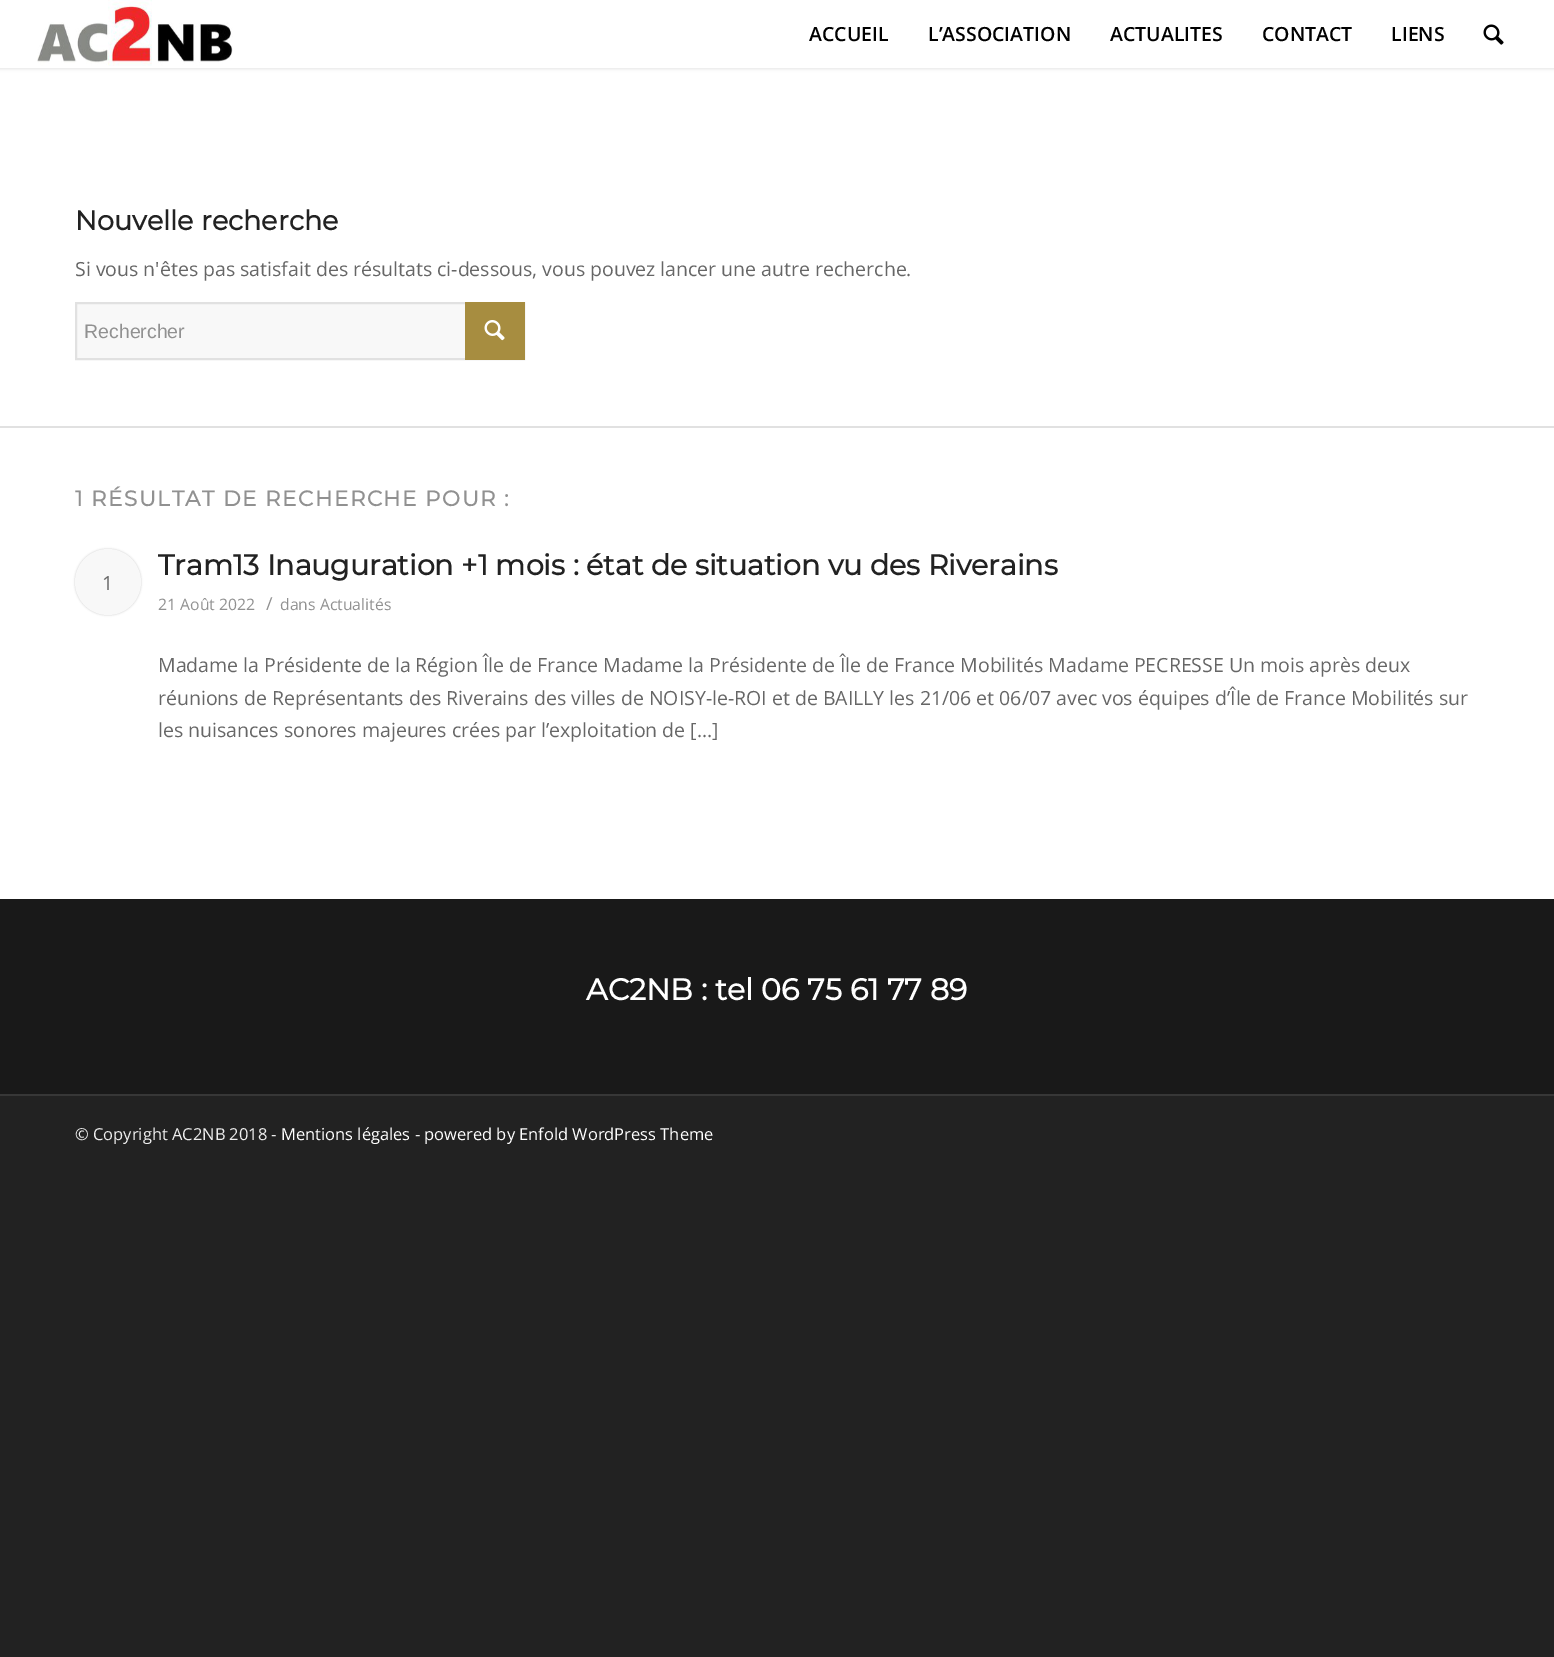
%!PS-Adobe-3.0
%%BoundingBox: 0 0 1554 1657
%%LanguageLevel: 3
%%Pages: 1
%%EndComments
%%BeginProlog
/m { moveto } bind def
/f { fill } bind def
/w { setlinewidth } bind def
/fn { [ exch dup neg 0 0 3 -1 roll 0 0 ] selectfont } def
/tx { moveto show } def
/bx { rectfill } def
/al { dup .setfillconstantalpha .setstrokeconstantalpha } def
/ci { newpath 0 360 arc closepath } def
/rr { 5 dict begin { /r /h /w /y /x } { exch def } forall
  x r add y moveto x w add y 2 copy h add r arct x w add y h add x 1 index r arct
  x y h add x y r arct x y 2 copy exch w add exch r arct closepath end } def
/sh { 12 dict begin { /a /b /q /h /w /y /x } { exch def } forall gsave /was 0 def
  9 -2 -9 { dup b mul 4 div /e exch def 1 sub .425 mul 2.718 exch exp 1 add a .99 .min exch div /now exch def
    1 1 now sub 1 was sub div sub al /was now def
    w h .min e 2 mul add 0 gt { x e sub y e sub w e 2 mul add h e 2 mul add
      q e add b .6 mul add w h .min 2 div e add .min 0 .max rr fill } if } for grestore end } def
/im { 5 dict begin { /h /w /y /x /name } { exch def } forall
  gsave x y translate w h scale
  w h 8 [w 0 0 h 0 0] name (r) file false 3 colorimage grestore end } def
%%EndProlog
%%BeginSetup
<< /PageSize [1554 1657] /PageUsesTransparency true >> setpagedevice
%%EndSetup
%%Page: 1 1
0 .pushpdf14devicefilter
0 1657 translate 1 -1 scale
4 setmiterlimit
0.133 setgray
0 0 1554 1657 bx
1 setgray
0 68 1554 831 bx
0 setgray
-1 -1 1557 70 0 1.5 0.1 sh
1 setgray
0 0 1554 68 bx
(image0.raw) 37 0 196 66 im
/OpenSans-SemiBold 19.5 fn
0 setgray
(ACCUEIL) 809 41 tx
(L’ASSOCIATION) 928 41 tx
(ACTUALITES) 1110 41 tx
(CONTACT) 1262 41 tx
(LIENS) 1391 41 tx
(image1.raw) 1483 24 21 21 im
/Montserrat-Bold 27 fn
0.133 setgray
(Nouvelle recherche) 75 230 tx
/OpenSans-Regular 19.5 fn
0.4 setgray
(Si vous n'êtes pas satisfait des résultats ci-dessous, vous pouvez lancer une autre recherche.) 75 276 tx
0.973 setgray
77 304 388 54 bx
0.882 setgray
2 w
76 303 448 56 rectstroke
/LiberationSans-Regular 19.5 fn
0.569 setgray
(Rechercher) 84 338 tx
0.655 0.553 0.251 setrgbcolor
465 302 60 58 bx
(image2.raw) 484 320 21 21 im
0.882 setgray
0 426 1554 2 bx
/Montserrat-Bold 21.45 fn
0.569 setgray
75 506 m 1.5 0 (1 RÉSULTAT DE RECHERCHE POUR :) ashow
/Montserrat-Bold 28.5 fn
0.133 setgray
(Tram13 Inauguration +1 mois : état de situation vu des Riverains) 158 575 tx
0 setgray
75 549 66 66 33 1 0.2 sh
0.973 setgray
108 582 33 ci f
/OpenSans-Regular 19.5 fn
0.4 setgray
(1) 102 590 tx
/OpenSans-Regular 15.75 fn
0.569 setgray
(21 Août 2022) 158 610 tx
/OpenSans-Regular 18 fn
(/) 266 610 tx
/OpenSans-Regular 15.75 fn
(dans Actualités) 280 610 tx
/OpenSans-Regular 19.5 fn
0.4 setgray
(Madame la Présidente de la Région Île de France Madame la Présidente de Île de France Mobilités Madame PECRESSE Un mois après deux) 158 672 tx
(réunions de Représentants des Riverains des villes de NOISY-le-ROI et de BAILLY les 21/06 et 06/07 avec vos équipes d’Île de France Mobilités sur) 158 705 tx
(les nuisances sonores majeures crées par l’exploitation de […]) 158 737 tx
0.098 setgray
0 899 1554 195 bx
/Montserrat-Bold 30 fn
1 setgray
(AC2NB : tel 06 75 61 77 89) 586 1000 tx
0.216 setgray
0 1094 1554 2 bx
/OpenSans-Regular 16.5 fn
0.933 setgray
(© Copyright AC2NB 2018 -) 75 1140 tx
1 setgray
(Mentions légales) 281 1140 tx
0.933 setgray
(-) 415 1140 tx
1 setgray
(powered by Enfold WordPress Theme) 424 1140 tx
.poppdf14devicefilter showpage
%%EOF
